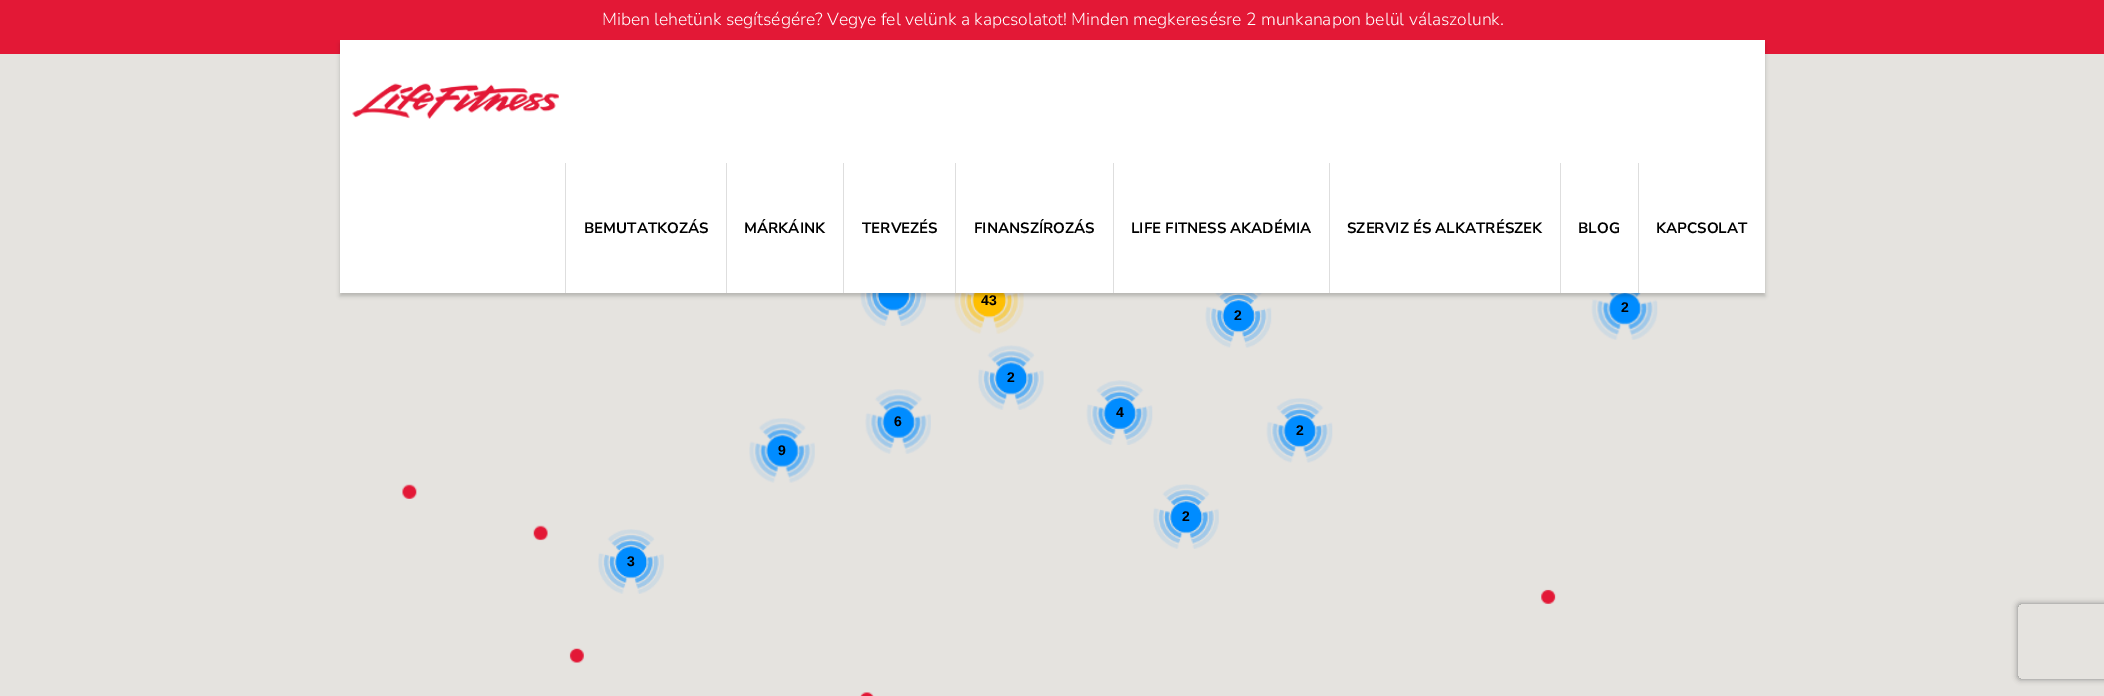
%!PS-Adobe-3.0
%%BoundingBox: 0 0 2104 696
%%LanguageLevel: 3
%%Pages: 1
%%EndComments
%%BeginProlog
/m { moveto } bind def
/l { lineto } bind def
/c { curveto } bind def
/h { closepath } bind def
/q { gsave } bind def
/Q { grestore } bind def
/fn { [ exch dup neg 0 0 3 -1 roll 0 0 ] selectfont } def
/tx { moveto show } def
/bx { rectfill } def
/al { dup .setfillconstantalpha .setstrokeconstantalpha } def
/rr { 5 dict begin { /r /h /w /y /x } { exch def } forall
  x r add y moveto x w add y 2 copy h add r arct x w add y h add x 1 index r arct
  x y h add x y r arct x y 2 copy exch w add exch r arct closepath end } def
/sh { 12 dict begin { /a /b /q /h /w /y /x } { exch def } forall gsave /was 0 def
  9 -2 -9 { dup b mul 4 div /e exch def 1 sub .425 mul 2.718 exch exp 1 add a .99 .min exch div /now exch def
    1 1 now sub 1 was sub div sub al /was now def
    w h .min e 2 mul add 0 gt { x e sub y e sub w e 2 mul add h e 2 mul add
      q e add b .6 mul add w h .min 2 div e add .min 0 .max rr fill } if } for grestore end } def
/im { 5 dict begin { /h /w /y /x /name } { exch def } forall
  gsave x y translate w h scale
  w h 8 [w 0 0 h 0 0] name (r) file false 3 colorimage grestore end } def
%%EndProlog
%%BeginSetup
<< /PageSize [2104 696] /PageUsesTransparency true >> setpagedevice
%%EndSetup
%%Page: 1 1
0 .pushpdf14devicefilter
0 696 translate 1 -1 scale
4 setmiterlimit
0.89 0.094 0.212 setrgbcolor
0 0 2104 696 bx
/NunitoSans-Light 17.5 fn
1 setgray
(Miben lehetünk segítségére? Vegye fel velünk a kapcsolatot! Minden megkeresésre 2 munkanapon belül válaszolunk.) 602 25 tx
0.898 0.89 0.875 setrgbcolor
0 54 2104 642 bx
(image1.raw) 860 293 66 33 im
(image2.raw) 954 293 70 41 im
(image3.raw) 1591 293 67 47 im
(image4.raw) 1205 293 67 55 im
0 setgray
340 44 1425 252 0 2 0.2 sh
1 setgray
340 40 1425 253 bx
(image0.raw) 352 83 207 36 im
0.871 setgray
565 163 1 130 bx
/NunitoSans-Bold 15 fn
0 setgray
(BEMUTATKOZÁS) 584 233 tx
0.871 setgray
726 163 1 130 bx
0 setgray
(MÁRKÁINK) 744 233 tx
0.871 setgray
843 163 1 130 bx
0 setgray
(TERVEZÉS) 862 233 tx
0.871 setgray
955 163 1 130 bx
0 setgray
(FINANSZÍROZÁS) 974 233 tx
0.871 setgray
1113 163 1 130 bx
0 setgray
(LIFE FITNESS AKADÉMIA) 1131 233 tx
0.871 setgray
1329 163 1 130 bx
0 setgray
(SZERVIZ ÉS ALKATRÉSZEK) 1347 233 tx
0.871 setgray
1560 163 1 130 bx
0 setgray
(BLOG) 1578 233 tx
0.871 setgray
1638 163 1 130 bx
0 setgray
(KAPCSOLAT) 1656 233 tx
/LiberationSans-Bold 14 fn
(43) 981 305 tx
(2) 1621 312 tx
(2) 1234 320 tx
(image5.raw) 978 345 66 65 im
(2) 1007 382 tx
(image6.raw) 1086 380 67 65 im
(4) 1116 417 tx
(image7.raw) 865 389 66 65 im
(6) 894 426 tx
(image8.raw) 1266 398 67 65 im
(2) 1296 435 tx
(image9.raw) 749 418 66 65 im
(9) 778 455 tx
(image10.raw) 1153 484 66 65 im
(2) 1182 521 tx
(image11.raw) 598 529 66 65 im
(3) 627 566 tx
(image12.raw) 402 484 15 15 im
(image13.raw) 533 525 15 16 im
(image14.raw) 1541 589 15 15 im
(image15.raw) 569 648 15 15 im
(image16.raw) 860 692 14 4 im
q
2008 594 m 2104 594 l 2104 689 l 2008 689 l h 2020.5 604 m 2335.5 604 l 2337 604 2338 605 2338 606.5 c 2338 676.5 l 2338 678 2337 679 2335.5 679 c 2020.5 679 l 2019 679 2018 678 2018 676.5 c 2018 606.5 l 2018 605 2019 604 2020.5 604 c h eoclip newpath
0.502 setgray
2018 604 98 75 2.5 3 1 sh
Q
.poppdf14devicefilter showpage
%%EOF
